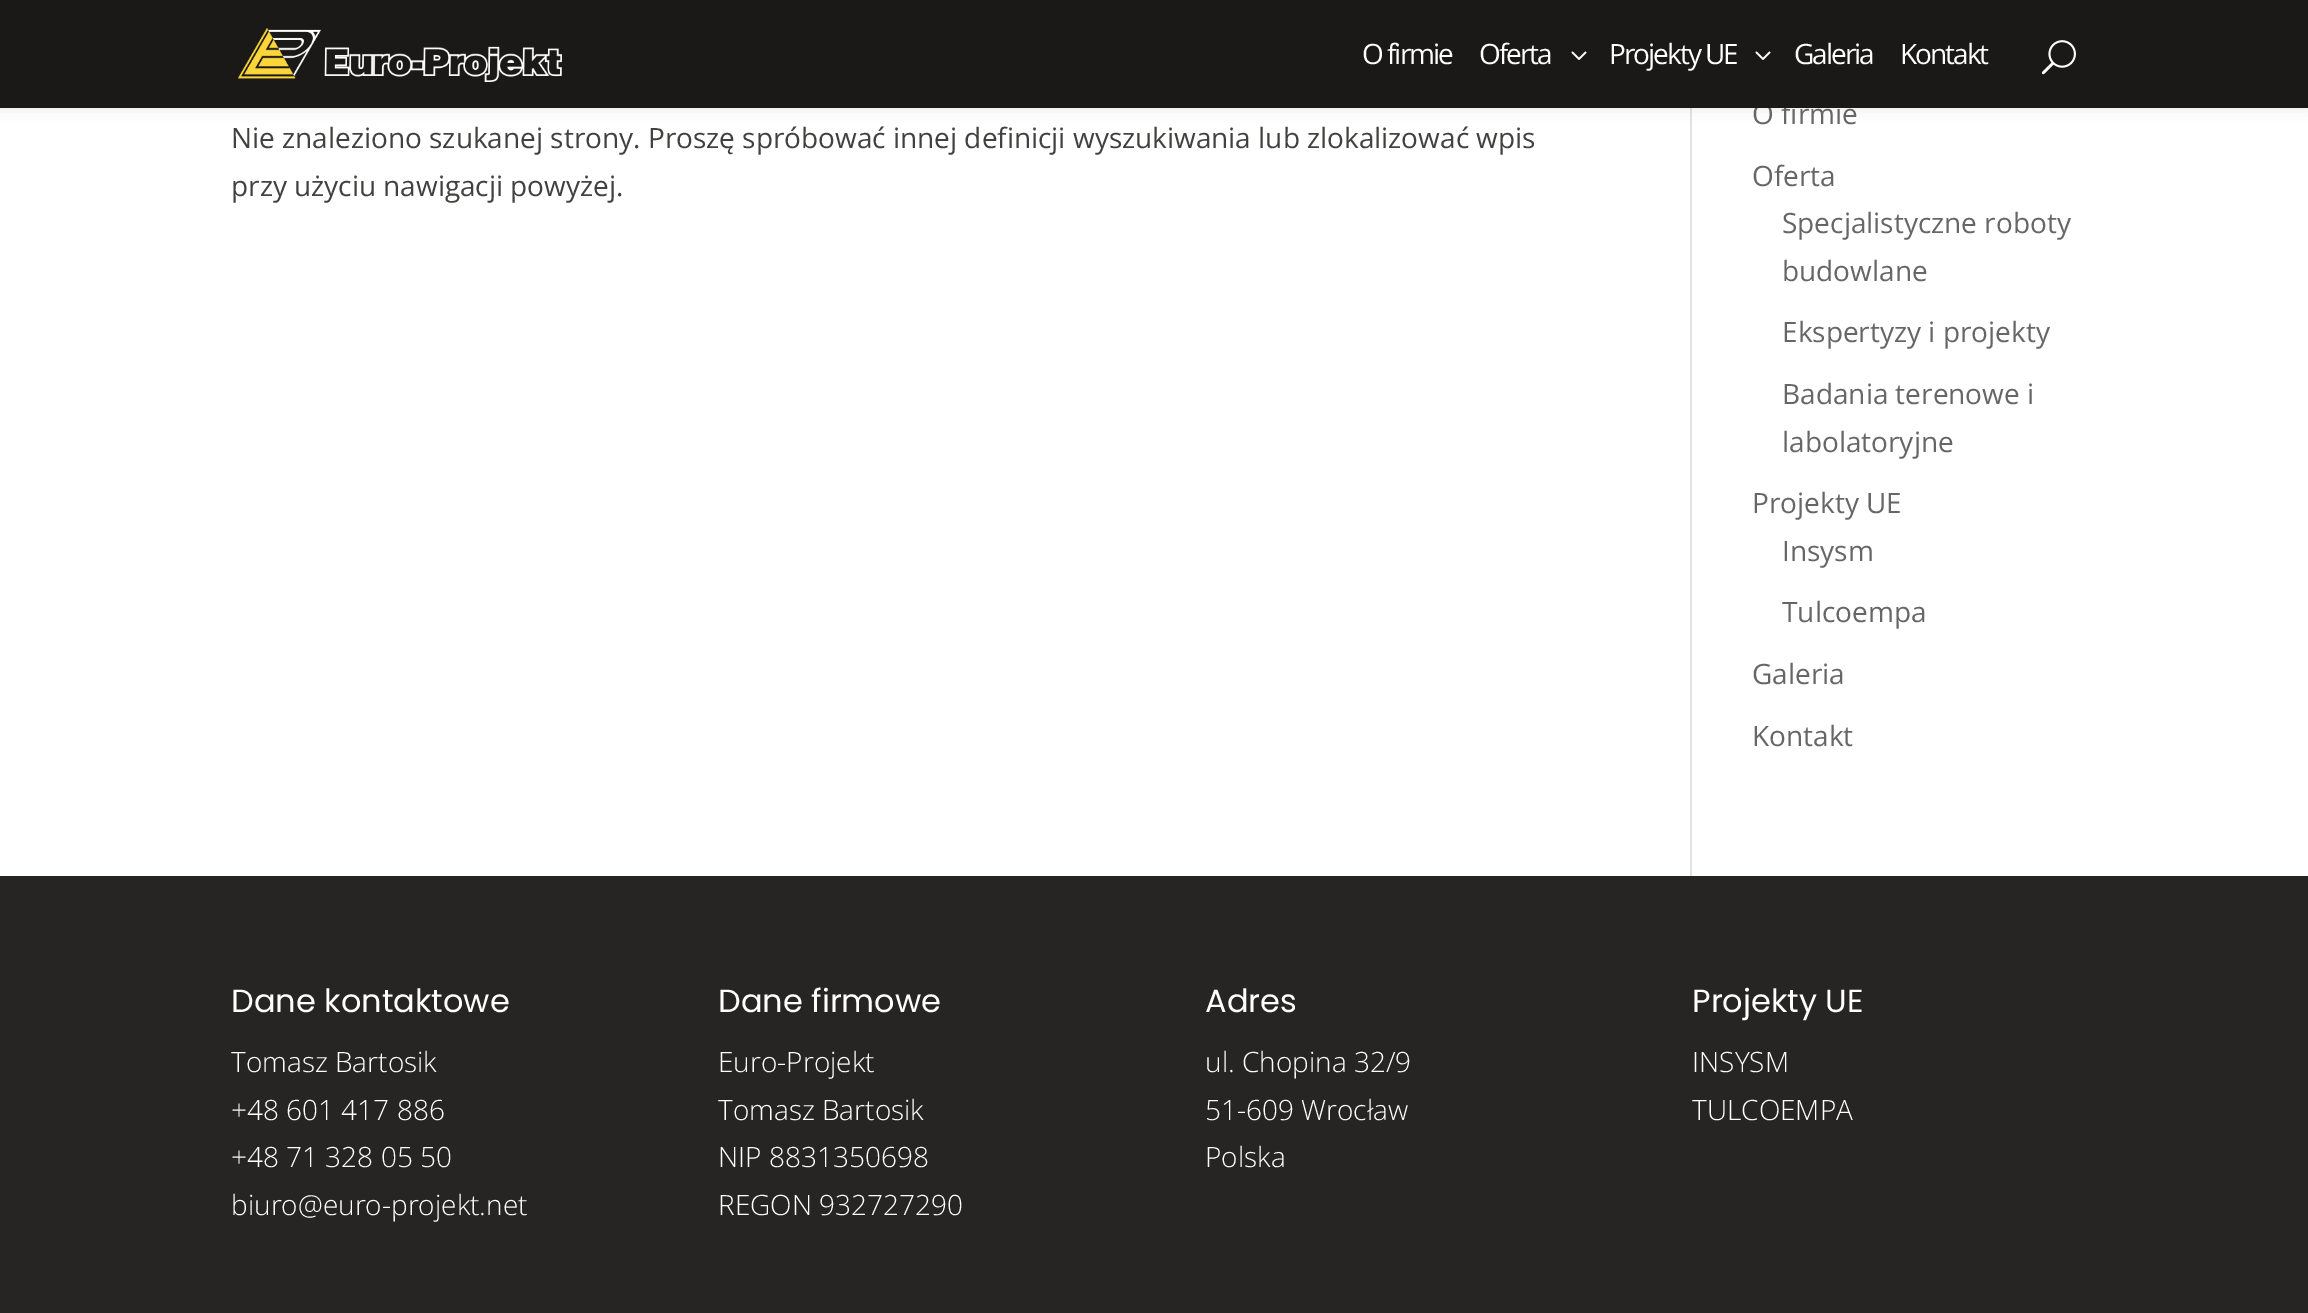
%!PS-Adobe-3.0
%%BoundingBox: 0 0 2308 1313
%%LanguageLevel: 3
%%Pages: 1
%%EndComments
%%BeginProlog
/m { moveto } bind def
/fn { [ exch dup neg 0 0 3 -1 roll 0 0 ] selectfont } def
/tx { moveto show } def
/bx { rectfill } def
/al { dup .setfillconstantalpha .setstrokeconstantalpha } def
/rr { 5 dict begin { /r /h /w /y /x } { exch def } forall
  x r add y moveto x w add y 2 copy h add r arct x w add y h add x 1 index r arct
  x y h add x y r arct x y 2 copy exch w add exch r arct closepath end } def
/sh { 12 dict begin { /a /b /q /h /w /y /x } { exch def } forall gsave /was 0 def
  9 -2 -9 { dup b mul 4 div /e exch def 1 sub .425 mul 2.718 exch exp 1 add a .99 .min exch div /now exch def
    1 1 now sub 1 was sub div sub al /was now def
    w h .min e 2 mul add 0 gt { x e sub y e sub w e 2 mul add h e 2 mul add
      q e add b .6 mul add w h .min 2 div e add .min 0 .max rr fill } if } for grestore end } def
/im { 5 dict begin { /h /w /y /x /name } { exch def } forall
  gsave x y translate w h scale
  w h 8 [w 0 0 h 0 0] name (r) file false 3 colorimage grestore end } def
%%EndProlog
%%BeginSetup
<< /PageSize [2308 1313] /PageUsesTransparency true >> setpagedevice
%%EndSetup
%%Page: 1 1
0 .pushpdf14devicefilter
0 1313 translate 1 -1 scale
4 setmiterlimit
1 setgray
0 0 2308 1313 bx
0.886 setgray
1690 108 2 768 bx
0 setgray
0 0 2308 108 0 7 0.1 sh
/OpenSans-Regular 28 fn
0.4 setgray
(O firmie) 1752 124 tx
0.106 0.098 0.094 setrgbcolor
0 0 2308 108 bx
(image0.raw) 238 28 324 54 im
1 setgray
1362 64 m -2 0 (O firmie) ashow
1479 64 m -2 0 (Oferta) ashow
(image1.raw) 1571 51 16 9 im
1609 64 m -2 0 (Projekty UE) ashow
(image1.raw) 1755 51 16 9 im
1794 64 m -2 0 (Galeria) ashow
1900 64 m -2 0 (Kontakt) ashow
(image2.raw) 2041 40 35 35 im
0.255 0.255 0.251 setrgbcolor
(Nie znaleziono szukanej strony. Proszę spróbować innej definicji wyszukiwania lub zlokalizować wpis) 231 148 tx
(przy użyciu nawigacji powyżej.) 231 196 tx
0.4 setgray
(Oferta) 1752 186 tx
(Specjalistyczne roboty) 1782 233 tx
(budowlane) 1782 281 tx
(Ekspertyzy i projekty) 1782 342 tx
(Badania terenowe i) 1782 404 tx
(labolatoryjne) 1782 452 tx
(Projekty UE) 1752 513 tx
(Insysm) 1782 561 tx
(Tulcoempa) 1782 622 tx
(Galeria) 1752 684 tx
(Kontakt) 1752 746 tx
0.149 0.145 0.141 setrgbcolor
0 876 2308 437 bx
/Poppins-Regular 32 fn
1 setgray
(Dane kontaktowe) 231 1012 tx
/OpenSans-Light 28 fn
(Tomasz Bartosik) 231 1072 tx
(+48 601 417 886) 231 1120 tx
(+48 71 328 05 50) 231 1167 tx
(biuro@euro-projekt.net) 231 1215 tx
/Poppins-Regular 32 fn
(Dane firmowe) 718 1012 tx
/OpenSans-Light 28 fn
(Euro-Projekt) 718 1072 tx
(Tomasz Bartosik) 718 1120 tx
(NIP 8831350698) 718 1167 tx
(REGON 932727290) 718 1215 tx
/Poppins-Regular 32 fn
(Adres) 1205 1012 tx
/OpenSans-Light 28 fn
(ul. Chopina 32/9) 1205 1072 tx
(51-609 Wrocław) 1205 1120 tx
(Polska) 1205 1167 tx
/Poppins-Regular 32 fn
(Projekty UE) 1692 1012 tx
/OpenSans-Light 28 fn
(INSYSM) 1692 1072 tx
(TULCOEMPA) 1692 1120 tx
.poppdf14devicefilter showpage
%%EOF
